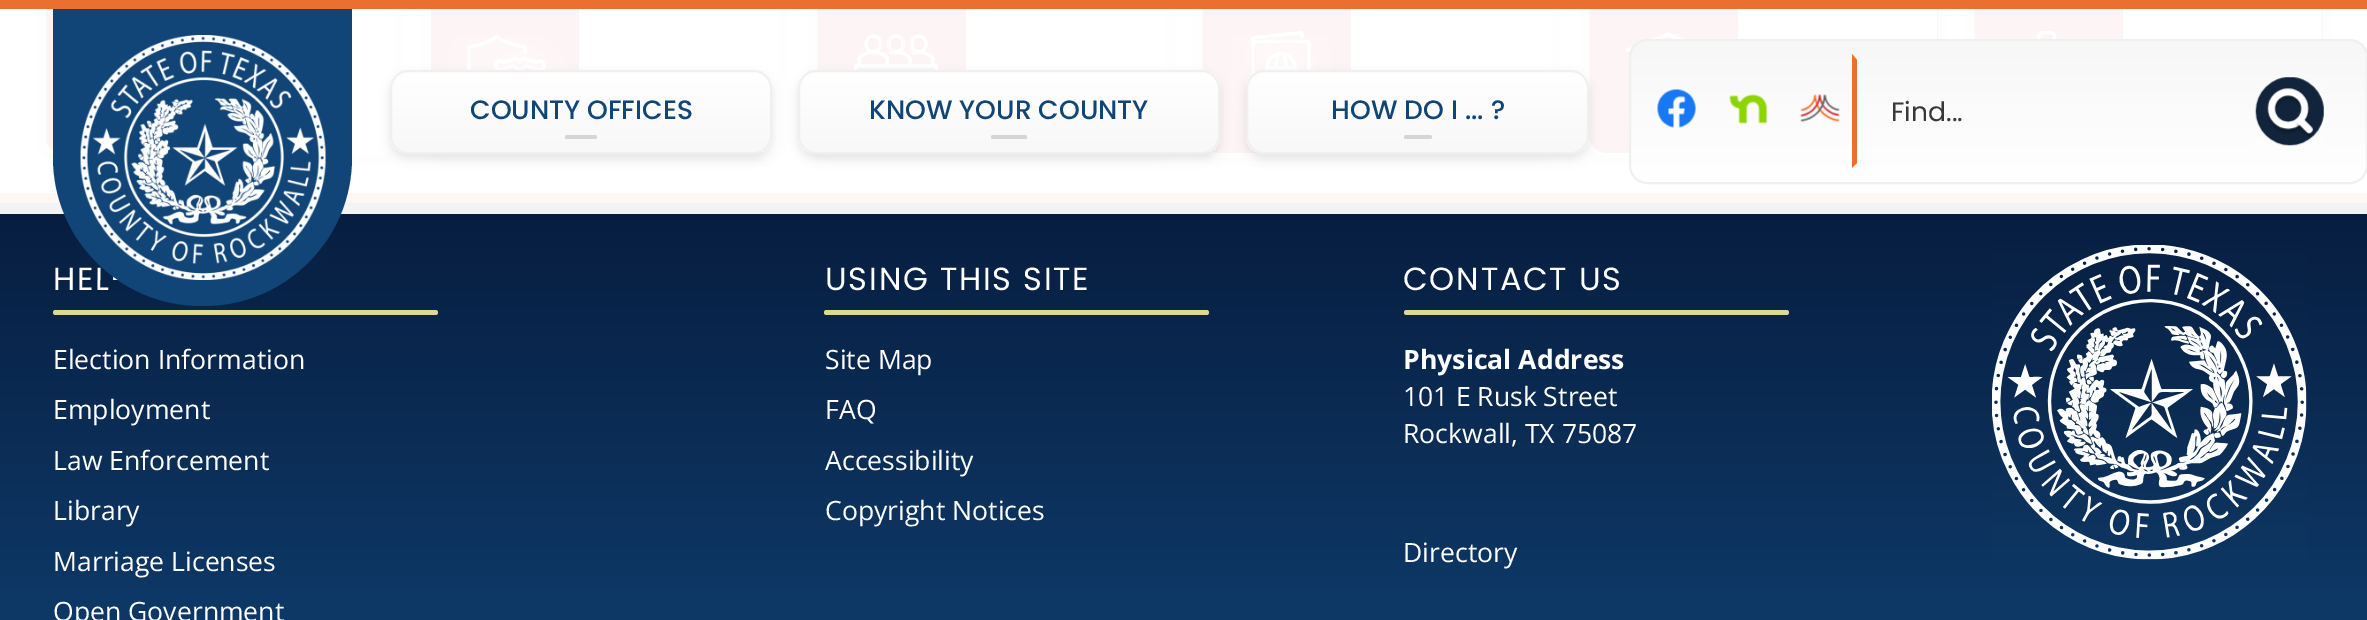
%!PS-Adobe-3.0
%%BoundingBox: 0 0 2367 620
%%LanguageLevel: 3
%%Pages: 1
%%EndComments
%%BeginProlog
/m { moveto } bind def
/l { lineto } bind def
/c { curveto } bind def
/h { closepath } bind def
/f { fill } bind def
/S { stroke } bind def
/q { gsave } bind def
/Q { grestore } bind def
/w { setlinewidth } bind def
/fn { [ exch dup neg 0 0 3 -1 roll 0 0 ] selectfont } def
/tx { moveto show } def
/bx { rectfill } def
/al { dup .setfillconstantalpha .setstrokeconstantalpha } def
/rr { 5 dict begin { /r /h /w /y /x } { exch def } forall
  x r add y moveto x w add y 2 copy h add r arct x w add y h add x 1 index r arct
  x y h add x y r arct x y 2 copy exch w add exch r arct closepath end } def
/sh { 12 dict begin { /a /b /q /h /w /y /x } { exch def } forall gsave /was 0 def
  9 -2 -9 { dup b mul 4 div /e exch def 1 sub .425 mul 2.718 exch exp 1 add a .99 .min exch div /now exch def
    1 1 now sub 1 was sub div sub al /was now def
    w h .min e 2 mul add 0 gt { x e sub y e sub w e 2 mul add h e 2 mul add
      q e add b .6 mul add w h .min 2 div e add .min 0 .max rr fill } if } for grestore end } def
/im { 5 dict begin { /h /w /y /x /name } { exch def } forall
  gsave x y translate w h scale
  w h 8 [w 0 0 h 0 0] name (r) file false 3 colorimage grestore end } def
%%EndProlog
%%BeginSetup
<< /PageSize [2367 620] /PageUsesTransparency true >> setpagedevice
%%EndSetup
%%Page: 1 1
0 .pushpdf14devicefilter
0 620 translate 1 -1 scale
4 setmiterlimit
1 setgray
0 0 2367 620 bx
0 setgray
40 -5 359 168 21 5 0.2 sh
q
40 -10 359 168 21 rr clip newpath
1 setgray
40 9 6 149 bx
0.875 0.247 0.247 setrgbcolor
46 9 7 148 bx
1 setgray
352 9 42 149 bx
Q
0.949 setgray
5 w
42.5 -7.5 354 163 18.5 rr S
0 setgray
425 -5 359 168 21 5 0.2 sh
q
425 -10 359 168 21 rr clip newpath
1 setgray
425 9 6 61 bx
0.875 0.247 0.247 setrgbcolor
431 9 148 149 bx
1 setgray
579 9 200 149 bx
Q
0.949 setgray
427.5 -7.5 354 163 18.5 rr S
(image0.raw) 444 34 125 36 im
0 setgray
812 -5 359 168 21 5 0.2 sh
q
812 -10 359 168 21 rr clip newpath
0.875 0.247 0.247 setrgbcolor
817 9 149 149 bx
1 setgray
966 9 200 149 bx
Q
0.949 setgray
814.5 -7.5 354 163 18.5 rr S
(image1.raw) 854 34 84 36 im
0 setgray
1197 -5 359 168 21 5 0.2 sh
q
1197 -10 359 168 21 rr clip newpath
0.875 0.247 0.247 setrgbcolor
1202 9 149 149 bx
1 setgray
1351 9 200 149 bx
Q
0.949 setgray
1199.5 -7.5 354 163 18.5 rr S
(image2.raw) 1228 31 106 98 im
0 setgray
1584 -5 359 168 21 5 0.2 sh
q
1584 -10 359 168 21 rr clip newpath
0.875 0.247 0.247 setrgbcolor
1589 9 149 149 bx
Q
1 setgray
1738 9 199 30 bx
0.875 0.247 0.247 setrgbcolor
1937 9 6 30 bx
0.949 setgray
1586.5 -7.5 354 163 18.5 rr S
(image3.raw) 1625 32 59 20 im
0 setgray
1969 -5 359 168 21 5 0.2 sh
0.875 0.247 0.247 setrgbcolor
1974 9 149 30 bx
1 setgray
2123 9 199 30 bx
0.875 0.247 0.247 setrgbcolor
2322 9 6 30 bx
0.949 setgray
1971.5 -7.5 354 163 18.5 rr S
(image4.raw) 2037 31 20 8 im
q 0 203 m 2367 203 l 2367 620 l 0 620 l h clip newpath
<< /ShadingType 2 /ColorSpace /DeviceRGB /Coords [1184 203 1184 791] /Extend [true true] /Function << /FunctionType 2 /Domain [0 1] /C0 [0.027 0.114 0.247] /C1 [0.067 0.271 0.467] /N 1 >> >> shfill Q
0.925 0.435 0.196 setrgbcolor
0 193 2367 10 bx
0.95 al
1 setgray
0 9 2367 205 bx
1 al
0.925 0.435 0.196 setrgbcolor
0 0 2367 9 bx
/Poppins-Regular 32 fn
1 setgray
53 290 m 1.75 0 (HEL) ashow
0.067 0.271 0.467 setrgbcolor
53 9 m 352 9 l 352 157.5 l 352 239.5 285.5 306 203.5 306 c 201.5 306 l 119.5 306 53 239.5 53 157.5 c h f
(image5.raw) 80 35 246 245 im
0 setgray
390 75 382 84 18 5 0.1 sh
q
390 70 382 84 18 rr clip newpath
q 390 72 m 772 72 l 772 152 l 390 152 l h clip newpath
<< /ShadingType 2 /ColorSpace /DeviceRGB /Coords [494 152 494 72] /Extend [true true] /Function << /FunctionType 2 /Domain [0 1] /C0 [0.973 0.973 0.973] /C1 [1 1 1] /N 1 >> >> shfill Q
Q
0.941 setgray
2 w
391 71 380 82 17 rr S
/Poppins-Medium 26.6 fn
0.067 0.271 0.467 setrgbcolor
(COUNTY OFFICES) 470 119 tx
0.835 setgray
565 135 32 4 2 rr f
0 setgray
798 75 422 84 18 5 0.1 sh
q
798 70 422 84 18 rr clip newpath
q 798 72 m 1220 72 l 1220 152 l 798 152 l h clip newpath
<< /ShadingType 2 /ColorSpace /DeviceRGB /Coords [921 152 921 72] /Extend [true true] /Function << /FunctionType 2 /Domain [0 1] /C0 [0.973 0.973 0.973] /C1 [1 1 1] /N 1 >> >> shfill Q
Q
0.941 setgray
799 71 420 82 17 rr S
0.067 0.271 0.467 setrgbcolor
(KNOW YOUR COUNTY) 869 119 tx
0.835 setgray
991 135 36 4 2 rr f
0 setgray
1246 75 343 84 18 5 0.1 sh
q
1246 70 343 84 18 rr clip newpath
q 1246 72 m 1589 72 l 1589 152 l 1246 152 l h clip newpath
<< /ShadingType 2 /ColorSpace /DeviceRGB /Coords [1330 152 1330 72] /Extend [true true] /Function << /FunctionType 2 /Domain [0 1] /C0 [0.973 0.973 0.973] /C1 [1 1 1] /N 1 >> >> shfill Q
Q
0.941 setgray
1247 71 341 82 17 rr S
0.067 0.271 0.467 setrgbcolor
(HOW DO I ... ?) 1331 119 tx
0.835 setgray
1404 135 28 4 2 rr f
q
1629 39 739 145 18 rr clip newpath
q 1631 40 m 2366 40 l 2366 182 l 1631 182 l h clip newpath
<< /ShadingType 2 /ColorSpace /DeviceRGB /Coords [1999 40 1999 182] /Extend [true true] /Function << /FunctionType 2 /Domain [0 1] /C0 [0.969 0.969 0.969] /C1 [1 1 1] /N 1 >> >> shfill Q
Q
0.941 setgray
1630 40 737 143 17 rr S
(image6.raw) 1657 89 39 39 im
(image7.raw) 1729 94 39 30 im
(image8.raw) 1800 94 40 28 im
0.925 0.435 0.196 setrgbcolor
1852 168 m 1852 54 l 1857 60 l 1857 163 l h f
/Poppins-Regular 26.6 fn
0.22 setgray
(Find...) 1891 121 tx
(image9.raw) 2255 77 69 69 im
0.882 0.839 0.592 setrgbcolor
53 310 385 5 2.5 rr f
/OpenSans-Regular 26.6 fn
1 setgray
(Election Information) 53 369 tx
(Employment) 53 419 tx
(Law Enforcement) 53 470 tx
(Library) 53 520 tx
(Marriage Licenses) 53 571 tx
(Open Government) 53 621 tx
/Poppins-Regular 32 fn
825 290 m 1.75 0 (USING THIS SITE) ashow
0.882 0.839 0.592 setrgbcolor
824 310 385 5 2.5 rr f
/OpenSans-Regular 26.6 fn
1 setgray
(Site Map) 825 369 tx
(FAQ) 825 419 tx
(Accessibility) 825 470 tx
(Copyright Notices) 825 520 tx
/Poppins-Regular 32 fn
1403 290 m 1.75 0 (CONTACT US) ashow
0.882 0.839 0.592 setrgbcolor
1404 310 385 5 2.5 rr f
/OpenSans-Bold 26.6 fn
1 setgray
(Physical Address) 1403 369 tx
/OpenSans-Regular 26.6 fn
(101 E Rusk Street) 1403 406 tx
(Rockwall, TX 75087) 1403 443 tx
(Directory) 1403 562 tx
(image10.raw) 1992 245 315 315 im
.poppdf14devicefilter showpage
%%EOF
